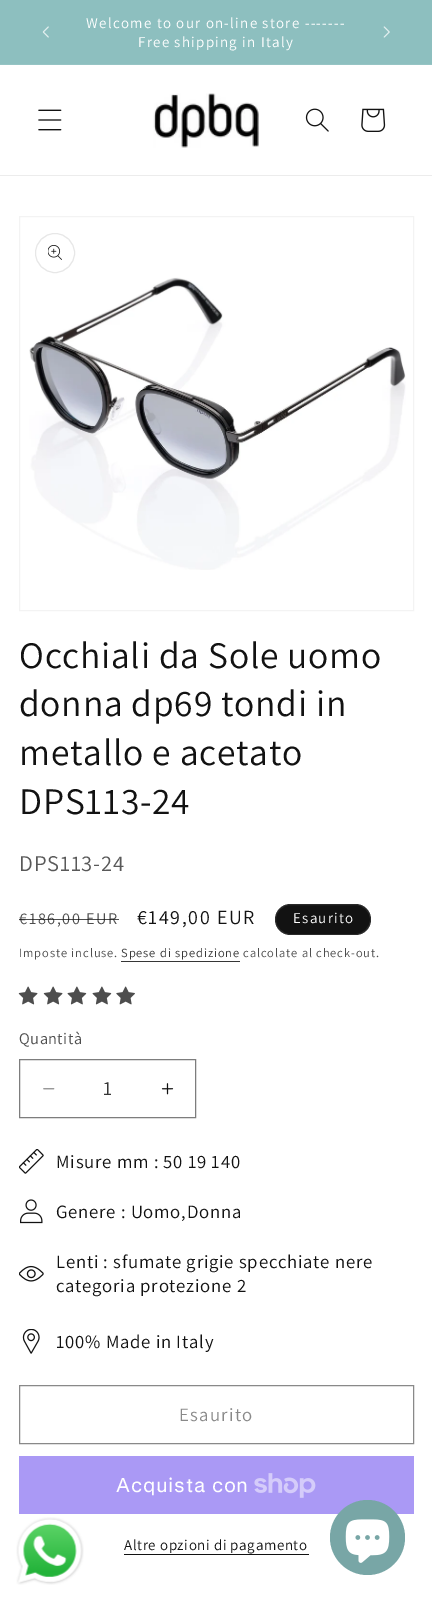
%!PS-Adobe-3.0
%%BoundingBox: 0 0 432 1601
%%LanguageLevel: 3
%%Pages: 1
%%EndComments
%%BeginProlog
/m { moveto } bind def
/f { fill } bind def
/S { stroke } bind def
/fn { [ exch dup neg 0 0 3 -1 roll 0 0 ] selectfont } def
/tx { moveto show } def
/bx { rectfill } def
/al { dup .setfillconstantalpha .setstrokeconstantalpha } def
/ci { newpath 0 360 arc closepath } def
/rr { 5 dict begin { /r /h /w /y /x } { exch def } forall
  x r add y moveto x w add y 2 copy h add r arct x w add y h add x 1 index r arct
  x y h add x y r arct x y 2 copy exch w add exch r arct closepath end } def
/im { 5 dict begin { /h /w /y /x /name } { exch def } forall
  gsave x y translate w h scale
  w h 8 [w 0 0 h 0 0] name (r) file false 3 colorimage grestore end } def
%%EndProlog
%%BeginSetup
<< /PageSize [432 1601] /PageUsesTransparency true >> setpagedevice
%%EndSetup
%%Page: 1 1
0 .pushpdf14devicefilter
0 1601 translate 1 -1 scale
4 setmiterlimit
1 setgray
0 0 432 1601 bx
0.553 0.749 0.749 setrgbcolor
0 0 432 64 bx
0.588 0.769 0.769 setrgbcolor
0 64 432 1 bx
(image0.raw) 42 26 7 12 im
/Assistant-Regular 15 fn
1 setgray
86 28 m 1.25 0 (Welcome to our on-line store -------) ashow
138 47 m 1.25 0 (Free shipping in Italy) ashow
(image1.raw) 383 26 7 12 im
0.925 setgray
0 175 432 1 bx
(image2.raw) 38 109 24 22 im
(image3.raw) 153 93 107 55 im
(image4.raw) 305 108 24 24 im
(image5.raw) 361 108 25 24 im
0.953 setgray
19.5 216.5 394 394 rectstroke
0.906 setgray
55 253 19.5 ci S
(image6.raw) 48 245 14 15 im
(image7.raw) 29 277 377 293 im
/Assistant-Regular 37.5 fn
0.071 setgray
19 668 m 0.75 0 (Occhiali da Sole uomo) ashow
19 716 m 0.75 0 (donna dp69 tondi in) ashow
19 765 m 0.75 0 (metallo e acetato) ashow
19 814 m 0.75 0 (DPS113-24) ashow
/Assistant-Regular 22.5 fn
0.349 setgray
19 871 m 0.75 0 (DPS113-24) ashow
/Assistant-Regular 16.25 fn
0.302 setgray
19 924 m 1.6 0 (€186,00 EUR) ashow
0.75 al
0.071 setgray
19 919 100 1 bx
/Assistant-Regular 20 fn
1 al
137 924 m 1.6 0 (€149,00 EUR) ashow
275 904 96 31 15.5 rr f
0.1 al
1 setgray
275.5 904.5 95 30 15 rr S
/Assistant-Regular 15 fn
1 al
293 923 m 1.25 0 (Esaurito) ashow
/Assistant-Regular 12.5 fn
0.302 setgray
19 957 m 0.9 0 (Imposte incluse.) ashow
0.212 setgray
121 957 m 0.9 0 (Spese di spedizione) ashow
121 961 119 1 bx
0.302 setgray
243 957 m 0.9 0 (calcolate al check-out.) ashow
(image8.raw) 18 986 20 19 im
(image8.raw) 43 986 20 19 im
(image9.raw) 67 986 20 19 im
(image9.raw) 92 986 20 19 im
(image10.raw) 116 986 19 19 im
/Assistant-Regular 16.25 fn
19 1044 m 0.5 0 (Quantità) ashow
(image11.raw) 43 1088 12 2 im
(image12.raw) 161 1083 13 12 im
0.49 setgray
19.5 1059.5 176 58 rectstroke
/Assistant-Regular 20 fn
0.212 setgray
(1) 103 1095 tx
(image13.raw) 19 1149 25 25 im
/Assistant-Regular 18.75 fn
0.071 setgray
56 1168 m 0.75 0 (Misure mm : 50 19 140) ashow
(image14.raw) 20 1199 23 25 im
56 1218 m 0.75 0 (Genere : Uomo,Donna) ashow
(image15.raw) 19 1265 25 17 im
56 1268 m 0.75 0 (Lenti : sfumate grigie specchiate nere) ashow
56 1292 m 0.75 0 (categoria protezione 2) ashow
(image16.raw) 22 1329 18 25 im
56 1348 m 0.75 0 (100% Made in Italy) ashow
0.537 setgray
19.5 1385.5 394 58 rectstroke
179 1421 m 1.25 0 (Esaurito) ashow
0.667 0.6 0.961 setrgbcolor
19 1456 395 58 bx
/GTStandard-Regular 20 fn
1 setgray
116 1492 m 0.75 0 (Acquista con) ashow
(image17.raw) 254 1473 62 25 im
/Assistant-Regular 15 fn
0.071 setgray
124 1550 m 0.6 0 (Altre opzioni di pagamento) ashow
124 1554 185 1 bx
(image18.raw) 16 1517 68 68 im
0.471 0.651 0.651 setrgbcolor
367.5 1537.5 37.5 ci f
(image19.raw) 345 1519 45 44 im
.poppdf14devicefilter showpage
%%EOF
